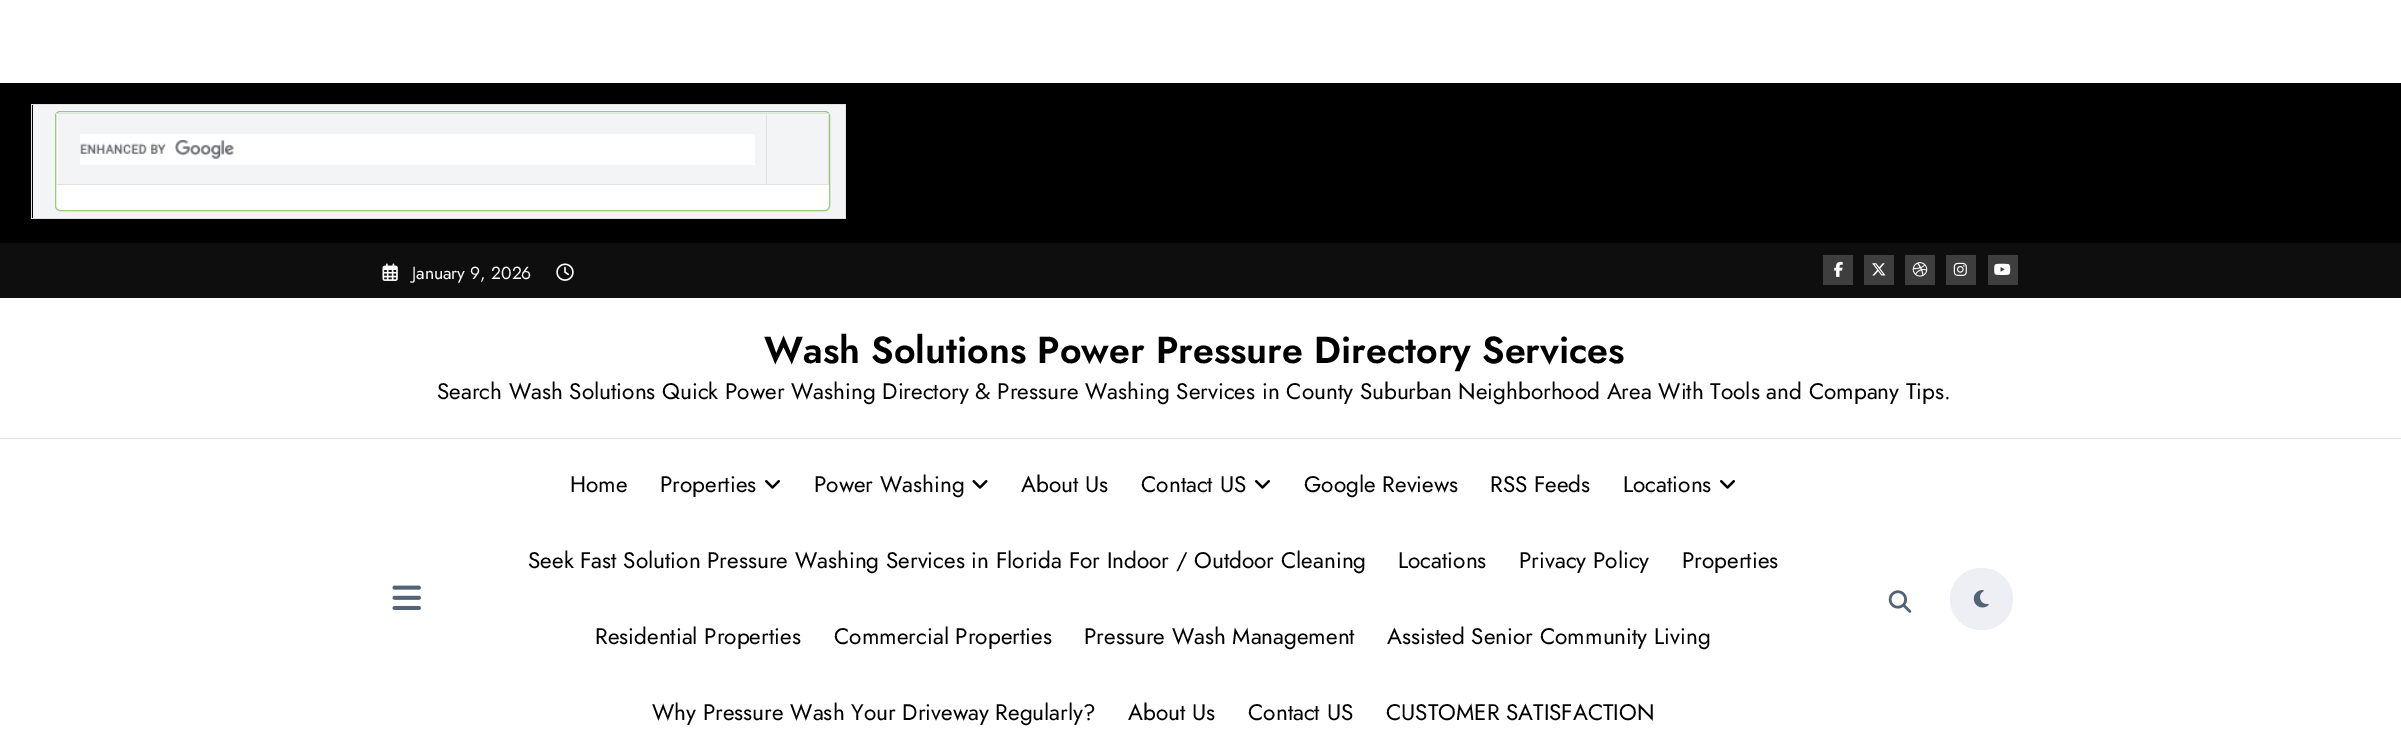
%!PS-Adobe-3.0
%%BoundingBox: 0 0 2401 756
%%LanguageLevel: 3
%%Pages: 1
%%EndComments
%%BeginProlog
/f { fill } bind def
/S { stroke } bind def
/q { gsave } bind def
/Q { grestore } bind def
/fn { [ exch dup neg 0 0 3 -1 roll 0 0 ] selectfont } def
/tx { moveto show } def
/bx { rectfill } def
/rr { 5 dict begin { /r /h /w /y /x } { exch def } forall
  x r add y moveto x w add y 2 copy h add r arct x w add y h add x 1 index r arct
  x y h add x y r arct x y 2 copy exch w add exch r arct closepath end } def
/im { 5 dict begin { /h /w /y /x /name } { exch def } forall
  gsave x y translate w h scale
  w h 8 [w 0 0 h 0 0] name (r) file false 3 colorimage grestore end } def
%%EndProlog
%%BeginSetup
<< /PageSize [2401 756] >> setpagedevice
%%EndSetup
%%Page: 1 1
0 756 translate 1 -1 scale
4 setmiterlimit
1 setgray
0 0 2401 756 bx
0 setgray
0 83 2401 160 bx
0.949 0.957 0.965 setrgbcolor
33 105 812 113 bx
0.882 setgray
31 104 815 1 bx
845 104 1 115 bx
31 218 815 1 bx
31 104 1 115 bx
1 setgray
55.5 111.5 774 99 4.5 rr q f Q
0.58 0.8 0.478 setrgbcolor
S
0.882 setgray
56 113 773 1 bx
56 113 1 72 bx
0.949 0.957 0.965 setrgbcolor
58 114 770 70 bx
0.882 setgray
828 113 1 72 bx
766 184 63 1 bx
766 113 1 72 bx
56 184 712 1 bx
1 setgray
80 134 675 31 bx
(image0.raw) 80 140 154 19 im
0.055 setgray
0 243 2401 55 bx
(image1.raw) 382 263 16 18 im
/Jost-Regular 17.5 fn
1 setgray
(January 9, 2026) 412 279 tx
(image2.raw) 556 263 18 18 im
0.243 setgray
1823 255 30 30 bx
(image3.raw) 1834 261 9 16 im
1864 255 30 30 bx
(image4.raw) 1872 263 14 13 im
1905 255 30 30 bx
(image5.raw) 1912 262 16 15 im
1946 255 30 30 bx
(image6.raw) 1953 262 14 14 im
1988 255 30 30 bx
(image7.raw) 1994 263 17 12 im
/Jost-SemiBold 37.5 fn
0 setgray
(Wash Solutions Power Pressure Directory Services) 764 363 tx
/Jost-Regular 22.5 fn
(Search Wash Solutions Quick Power Washing Directory & Pressure Washing Services in County Suburban Neighborhood Area With Tools and Company Tips.) 437 399 tx
0.882 setgray
0 438 2401 1 bx
(image8.raw) 392 585 29 25 im
0 setgray
(Home) 570 492 tx
(Properties) 660 492 tx
(image9.raw) 765 480 15 9 im
(Power Washing) 814 492 tx
(image10.raw) 972 480 16 9 im
(About Us) 1021 492 tx
(Contact US) 1141 492 tx
(image9.raw) 1255 480 15 9 im
(Google Reviews) 1304 492 tx
(RSS Feeds) 1490 492 tx
(Locations) 1623 492 tx
(image9.raw) 1720 480 15 9 im
(Seek Fast Solution Pressure Washing Services in Florida For Indoor / Outdoor Cleaning) 528 568 tx
(Locations) 1398 568 tx
(Privacy Policy) 1519 568 tx
(Properties) 1682 568 tx
(Residential Properties) 595 644 tx
(Commercial Properties) 834 644 tx
(Pressure Wash Management) 1084 644 tx
(Assisted Senior Community Living) 1387 644 tx
(Why Pressure Wash Your Driveway Regularly?) 652 720 tx
(About Us) 1128 720 tx
(Contact US) 1248 720 tx
(CUSTOMER SATISFACTION) 1386 720 tx
(image11.raw) 1888 590 24 23 im
0.933 0.933 0.961 setrgbcolor
1950 568 63 62 31 rr f
(image12.raw) 1973 590 16 18 im
showpage
%%EOF
